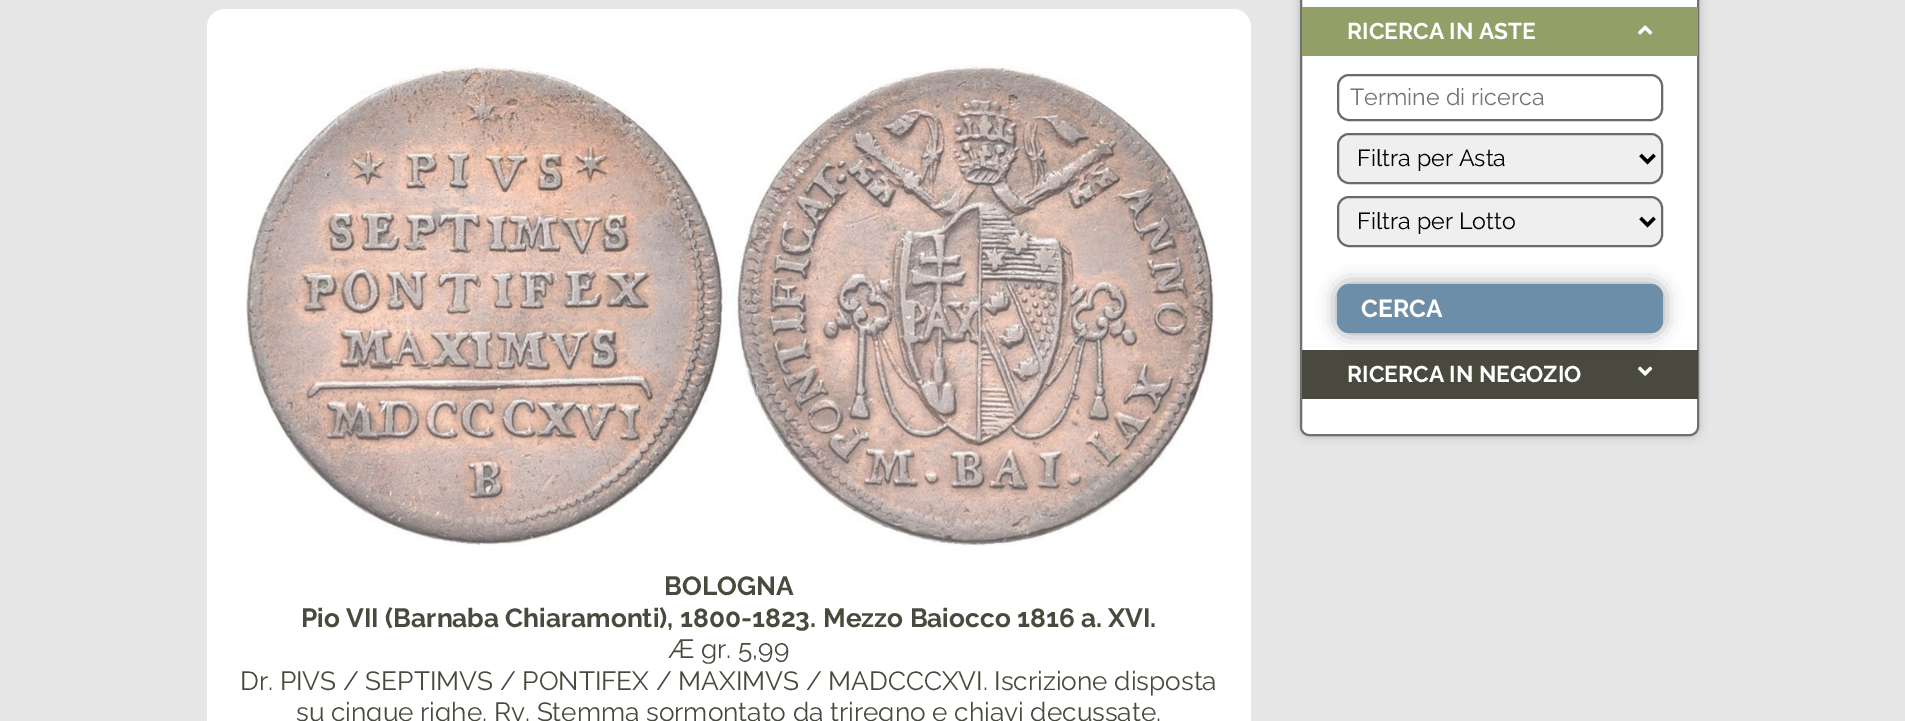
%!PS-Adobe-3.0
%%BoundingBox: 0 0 1905 721
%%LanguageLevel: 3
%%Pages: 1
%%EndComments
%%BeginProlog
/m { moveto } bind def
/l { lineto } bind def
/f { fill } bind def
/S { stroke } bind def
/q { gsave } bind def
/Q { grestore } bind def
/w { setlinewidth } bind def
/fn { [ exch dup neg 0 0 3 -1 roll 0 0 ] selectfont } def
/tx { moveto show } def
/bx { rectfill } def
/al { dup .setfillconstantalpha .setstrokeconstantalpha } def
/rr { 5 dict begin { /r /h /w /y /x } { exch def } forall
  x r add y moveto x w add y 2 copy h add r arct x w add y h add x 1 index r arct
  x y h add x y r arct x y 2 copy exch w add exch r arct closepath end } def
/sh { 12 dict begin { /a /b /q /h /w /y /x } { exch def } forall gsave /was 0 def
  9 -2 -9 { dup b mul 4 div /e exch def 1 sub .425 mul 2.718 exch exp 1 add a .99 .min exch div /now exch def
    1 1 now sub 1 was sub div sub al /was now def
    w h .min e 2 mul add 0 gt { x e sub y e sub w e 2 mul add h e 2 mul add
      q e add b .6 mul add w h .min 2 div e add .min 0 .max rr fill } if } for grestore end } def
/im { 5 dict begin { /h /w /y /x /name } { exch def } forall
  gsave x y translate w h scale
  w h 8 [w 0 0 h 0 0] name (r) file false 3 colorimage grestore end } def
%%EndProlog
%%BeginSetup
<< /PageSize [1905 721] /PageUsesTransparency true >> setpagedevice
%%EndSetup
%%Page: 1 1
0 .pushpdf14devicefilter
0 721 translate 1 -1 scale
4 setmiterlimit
0.902 setgray
0 0 1905 721 bx
0 setgray
1300 -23 399 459 9 4.5 0.2 sh
1 setgray
1301 -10 397 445 8 rr q f Q
0.439 setgray
2 w
S
0.573 0.624 0.4 setrgbcolor
1302 7 396 49 bx
/Raleway-Bold 22.75 fn
1 setgray
(RICERCA IN ASTE) 1347 39 tx
(image0.raw) 1638 25 15 10 im
0.416 setgray
1338 75 324 45 11 rr S
/Raleway-Regular 23.25 fn
0.459 setgray
(Termine di ricerca) 1350 105 tx
0.937 setgray
1338 134 324 49 11 rr q f Q
0.416 setgray
S
0 setgray
3.5 w
1640.5 155 m 1647.5 162 l 1654.5 155 l S
(Filtra per Asta) 1357 166 tx
0.937 setgray
1338 197 324 49 11 rr q f Q
0.416 setgray
2 w
S
0 setgray
3.5 w
1640.5 218 m 1647.5 225 l 1654.5 218 l S
(Filtra per Lotto) 1357 229 tx
0.29 0.286 0.239 setrgbcolor
1302 350 396 49 bx
0 setgray
1337 284 326 49 12 9 0.4 sh
0.424 0.557 0.659 setrgbcolor
1337 284 326 49 12 rr f
/Raleway-Bold 24.5 fn
1 setgray
(CERCA) 1361 317 tx
/Raleway-Bold 22.75 fn
(RICERCA IN NEGOZIO) 1347 382 tx
(image1.raw) 1638 366 15 10 im
207 9 1044 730 18 rr f
(image2.raw) 245 65 970 481 im
/Raleway-Bold 26.25 fn
0.29 0.286 0.239 setrgbcolor
(BOLOGNA) 664 595 tx
(Pio VII \(Barnaba Chiaramonti\), 1800-1823.) 301 627 tx
(Mezzo Baiocco 1816 a. XVI.) 823 627 tx
/Raleway-Regular 26.25 fn
(Æ gr. 5,99) 669 658 tx
(Dr. PIVS / SEPTIMVS / PONTIFEX / MAXIMVS / MADCCCXVI. Iscrizione disposta) 240 690 tx
(su cinque righe. Rv. Stemma sormontato da triregno e chiavi decussate.) 296 721 tx
.poppdf14devicefilter showpage
%%EOF
